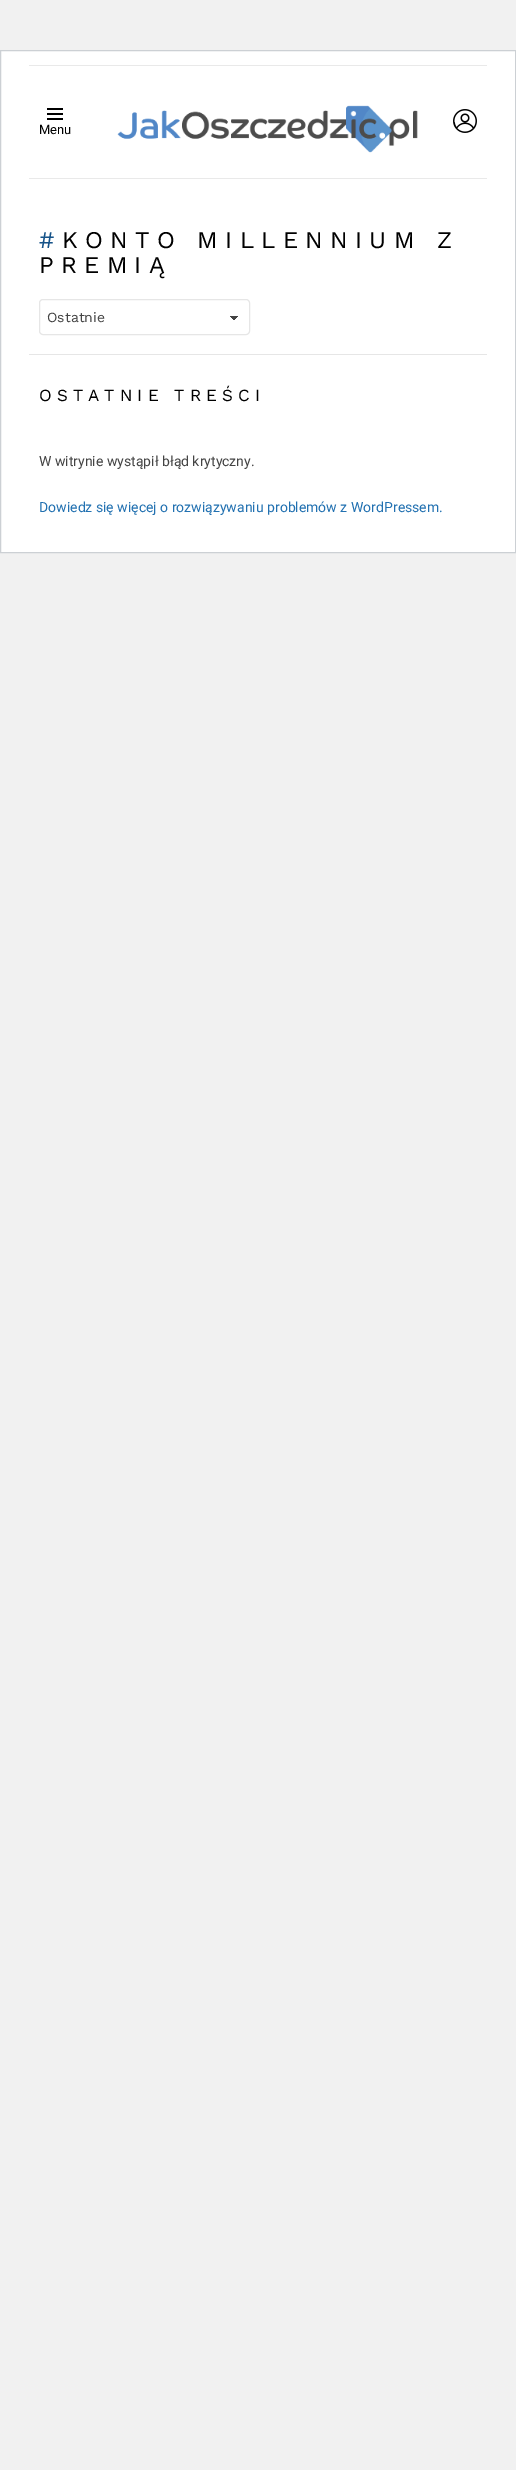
%!PS-Adobe-3.0
%%BoundingBox: 0 0 516 2470
%%LanguageLevel: 3
%%Pages: 1
%%EndComments
%%BeginProlog
/m { moveto } bind def
/l { lineto } bind def
/h { closepath } bind def
/f { fill } bind def
/S { stroke } bind def
/q { gsave } bind def
/Q { grestore } bind def
/fn { [ exch dup neg 0 0 3 -1 roll 0 0 ] selectfont } def
/tx { moveto show } def
/bx { rectfill } def
/rr { 5 dict begin { /r /h /w /y /x } { exch def } forall
  x r add y moveto x w add y 2 copy h add r arct x w add y h add x 1 index r arct
  x y h add x y r arct x y 2 copy exch w add exch r arct closepath end } def
/im { 5 dict begin { /h /w /y /x /name } { exch def } forall
  gsave x y translate w h scale
  w h 8 [w 0 0 h 0 0] name (r) file false 3 colorimage grestore end } def
%%EndProlog
%%BeginSetup
<< /PageSize [516 2470] >> setpagedevice
%%EndSetup
%%Page: 1 1
0 2470 translate 1 -1 scale
4 setmiterlimit
0.945 setgray
0 0 516 2470 bx
1 setgray
0.5 50.5 m 515.5 50.5 l 515.5 552.5 l 0.5 552.5 l h q f Q
0.8 0.816 0.831 setrgbcolor
S
0.914 setgray
29 65 458 1 bx
(image0.raw) 47 108 16 12 im
/Roboto-Regular 13 fn
0 setgray
(Menu) 39 134 tx
(image1.raw) 117 105 301 48 im
(image2.raw) 453 109 24 24 im
0.914 setgray
29 178 458 1 bx
/WorkSans-Regular 24 fn
0.086 0.325 0.537 setrgbcolor
39 248 m 7.25 0 (#) ashow
0 setgray
62 248 m 7.25 0 (KONTO MILLENNIUM Z) ashow
39 273 m 7.25 0 (PREMIĄ) ashow
q 234 316 m 239 316 l 239 320 l 234 320 l h clip newpath
<< /ShadingType 2 /ColorSpace /DeviceRGB /Coords [234 316 239 320] /Extend [true true] /Function << /FunctionType 3 /Domain [0 1] /Functions [<< /FunctionType 2 /Domain [0 1] /C0 [0.267 0.267 0.267] /C1 [0.267 0.267 0.267] /N 1 >> << /FunctionType 2 /Domain [0 1] /C0 [1 1 1] /C1 [1 1 1] /N 1 >>] /Bounds [0.5] /Encode [0 1 0 1] >> >> shfill Q
q 229 316 m 234 316 l 234 320 l 229 320 l h clip newpath
<< /ShadingType 2 /ColorSpace /DeviceRGB /Coords [229 320 234 316] /Extend [true true] /Function << /FunctionType 3 /Domain [0 1] /Functions [<< /FunctionType 2 /Domain [0 1] /C0 [1 1 1] /C1 [1 1 1] /N 1 >> << /FunctionType 2 /Domain [0 1] /C0 [0.267 0.267 0.267] /C1 [0.267 0.267 0.267] /N 1 >>] /Bounds [0.5] /Encode [0 1 0 1] >> >> shfill Q
0.902 setgray
39.5 299.5 210 35 3.5 rr S
/WorkSans-Regular 14 fn
0.267 setgray
(Ostatnie) 47 322 tx
0.902 setgray
29 354 458 1 bx
/WorkSans-Regular 17 fn
0 setgray
39 401 m 5.1 0 (OSTATNIE TREŚCI) ashow
/Roboto-Regular 14 fn
0.267 setgray
(W witrynie wystąpił błąd krytyczny.) 39 466 tx
0.133 0.443 0.694 setrgbcolor
(Dowiedz się więcej o rozwiązywaniu problemów z WordPressem.) 39 512 tx
showpage
%%EOF
